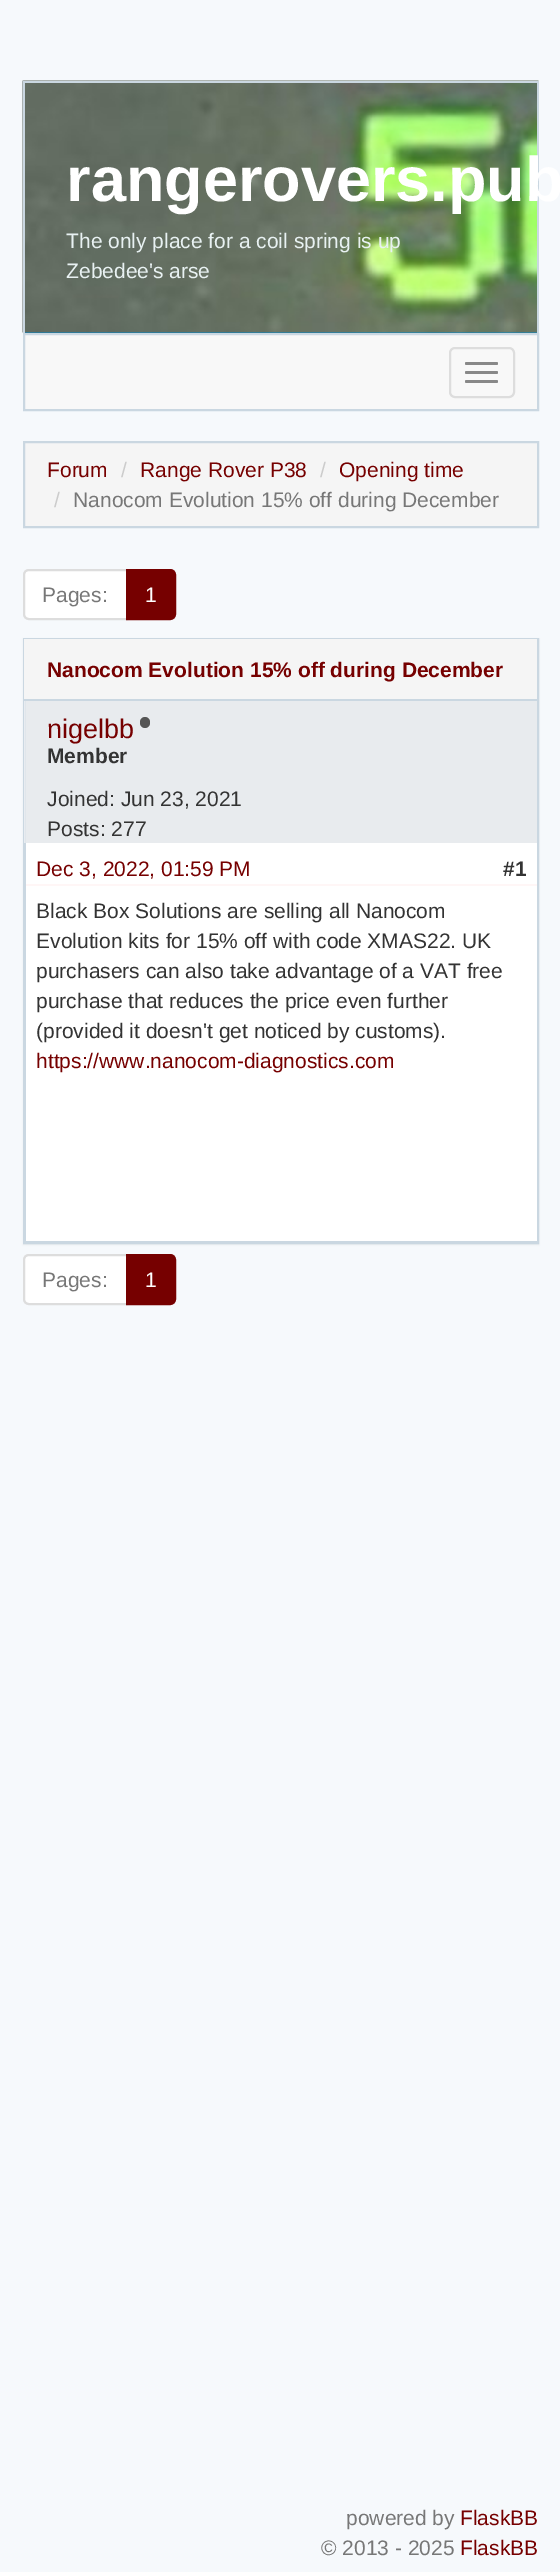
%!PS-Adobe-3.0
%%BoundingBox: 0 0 560 2572
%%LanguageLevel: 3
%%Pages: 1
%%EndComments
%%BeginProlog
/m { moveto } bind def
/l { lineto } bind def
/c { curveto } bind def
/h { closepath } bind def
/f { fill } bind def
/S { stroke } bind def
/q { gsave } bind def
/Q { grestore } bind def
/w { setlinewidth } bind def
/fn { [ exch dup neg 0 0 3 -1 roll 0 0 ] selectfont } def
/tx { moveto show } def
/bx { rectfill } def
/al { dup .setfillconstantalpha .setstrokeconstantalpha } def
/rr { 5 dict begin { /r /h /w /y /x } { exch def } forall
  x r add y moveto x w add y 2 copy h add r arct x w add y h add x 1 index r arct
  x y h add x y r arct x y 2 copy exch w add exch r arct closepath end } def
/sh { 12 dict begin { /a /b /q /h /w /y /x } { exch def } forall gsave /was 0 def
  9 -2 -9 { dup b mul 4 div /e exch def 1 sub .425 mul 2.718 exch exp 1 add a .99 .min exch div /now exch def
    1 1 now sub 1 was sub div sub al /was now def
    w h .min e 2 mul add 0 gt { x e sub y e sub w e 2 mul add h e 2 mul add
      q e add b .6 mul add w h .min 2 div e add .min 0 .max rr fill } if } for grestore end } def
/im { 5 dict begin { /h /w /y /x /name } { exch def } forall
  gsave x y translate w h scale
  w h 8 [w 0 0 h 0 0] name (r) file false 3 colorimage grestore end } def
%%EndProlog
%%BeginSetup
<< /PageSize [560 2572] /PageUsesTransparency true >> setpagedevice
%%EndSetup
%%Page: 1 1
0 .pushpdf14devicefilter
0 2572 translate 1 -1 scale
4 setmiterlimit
0.965 0.976 0.988 setrgbcolor
0 0 560 2572 bx
0 0.533 0.8 setrgbcolor
25 332 512 1 bx
(image0.raw) 22 80 517 253 im
0.792 0.843 0.882 setrgbcolor
23 81 516 2 bx
537 81 2 252 bx
23 81 2 252 bx
/LiberationSans-Bold 63 fn
1 setgray
(rangerovers.pub) 66 201 tx
/LiberationSans-Regular 21 fn
0.91 0.945 0.949 setrgbcolor
(The only place for a coil spring is up) 66 248 tx
(Zebedee's arse) 66 278 tx
0.973 setgray
24 334 m 538 334 l 538 410 l 24 410 l h q f Q
0.792 0.843 0.882 setrgbcolor
2 w
S
0.867 setgray
450 348 64 49 5 rr S
0.533 setgray
465 362 33 3 1.5 rr f
465 371 33 3 1.5 rr f
465 380 33 3 1.5 rr f
0.961 setgray
24 442 m 538 442 l 538 527 l 24 527 l h q f Q
0.792 0.843 0.882 setrgbcolor
S
0.463 0 0 setrgbcolor
(Forum) 47 477 tx
0.8 setgray
(/) 121 477 tx
0.463 0 0 setrgbcolor
(Range Rover P38) 140 477 tx
0.8 setgray
(/) 320 477 tx
0.463 0 0 setrgbcolor
(Opening time) 339 477 tx
0.8 setgray
(/) 54 507 tx
0.467 setgray
(Nanocom Evolution 15% off during December) 73 507 tx
1 setgray
29 570 m 127 570 l 127 619 l 29 619 l 26 619 24 617 24 614 c 24 575 l 24 572 26 570 29 570 c h q f Q
0.867 setgray
S
0.467 setgray
(Pages:) 42 602 tx
0.463 0 0 setrgbcolor
127 570 m 170 570 l 173 570 175 572 175 575 c 175 614 l 175 617 173 619 170 619 c 127 619 l h q f Q
S
1 setgray
(1) 145 602 tx
0 setgray
23 639 516 606 0 1 0.05 sh
0.792 0.843 0.882 setrgbcolor
24 639 514 604 rectstroke
0.961 setgray
24 639 513 60 bx
0.792 0.843 0.882 setrgbcolor
24 699 513 2 bx
/LiberationSans-Bold 21 fn
0.463 0 0 setrgbcolor
(Nanocom Evolution 15% off during December) 47 677 tx
0.91 0.925 0.945 setrgbcolor
24 701 1 142 bx
/LiberationSans-Regular 27 fn
0.463 0 0 setrgbcolor
(nigelbb) 47 738 tx
0.333 setgray
140 717 10 11 5 rr f
/LiberationSans-Bold 21 fn
0.2 setgray
(Member) 47 763 tx
/LiberationSans-Regular 21 fn
(Joined: Jun 23, 2021) 47 806 tx
(Posts: 277) 47 836 tx
1 setgray
26 843 511 398 bx
0.792 0.843 0.882 setrgbcolor
25 843 1 399 bx
1 0.965 0.965 setrgbcolor
26 884 511 2 bx
0.463 0 0 setrgbcolor
(Dec 3, 2022, 01:59 PM) 36 876 tx
/LiberationSans-Bold 21 fn
0.2 setgray
(#1) 503 876 tx
/LiberationSans-Regular 21 fn
(Black Box Solutions are selling all Nanocom) 36 918 tx
(Evolution kits for 15% off with code XMAS22. UK) 36 948 tx
(purchasers can also take advantage of a VAT free) 36 978 tx
(purchase that reduces the price even further) 36 1008 tx
(\(provided it doesn't get noticed by customs\).) 36 1038 tx
0.463 0 0 setrgbcolor
(https://www.nanocom-diagnostics.com) 36 1068 tx
0.792 0.843 0.882 setrgbcolor
26 1241 511 1 bx
1 setgray
29 1255 m 127 1255 l 127 1304 l 29 1304 l 26 1304 24 1302 24 1299 c 24 1260 l 24 1257 26 1255 29 1255 c h q f Q
0.867 setgray
S
0.467 setgray
(Pages:) 42 1287 tx
0.463 0 0 setrgbcolor
127 1255 m 170 1255 l 173 1255 175 1257 175 1260 c 175 1299 l 175 1302 173 1304 170 1304 c 127 1304 l h q f Q
S
1 setgray
(1) 145 1287 tx
0.467 setgray
(powered by) 346 2525 tx
0.463 0 0 setrgbcolor
(FlaskBB) 460 2525 tx
0.467 setgray
(© 2013 - 2025) 321 2555 tx
0.463 0 0 setrgbcolor
(FlaskBB) 460 2555 tx
.poppdf14devicefilter showpage
%%EOF
